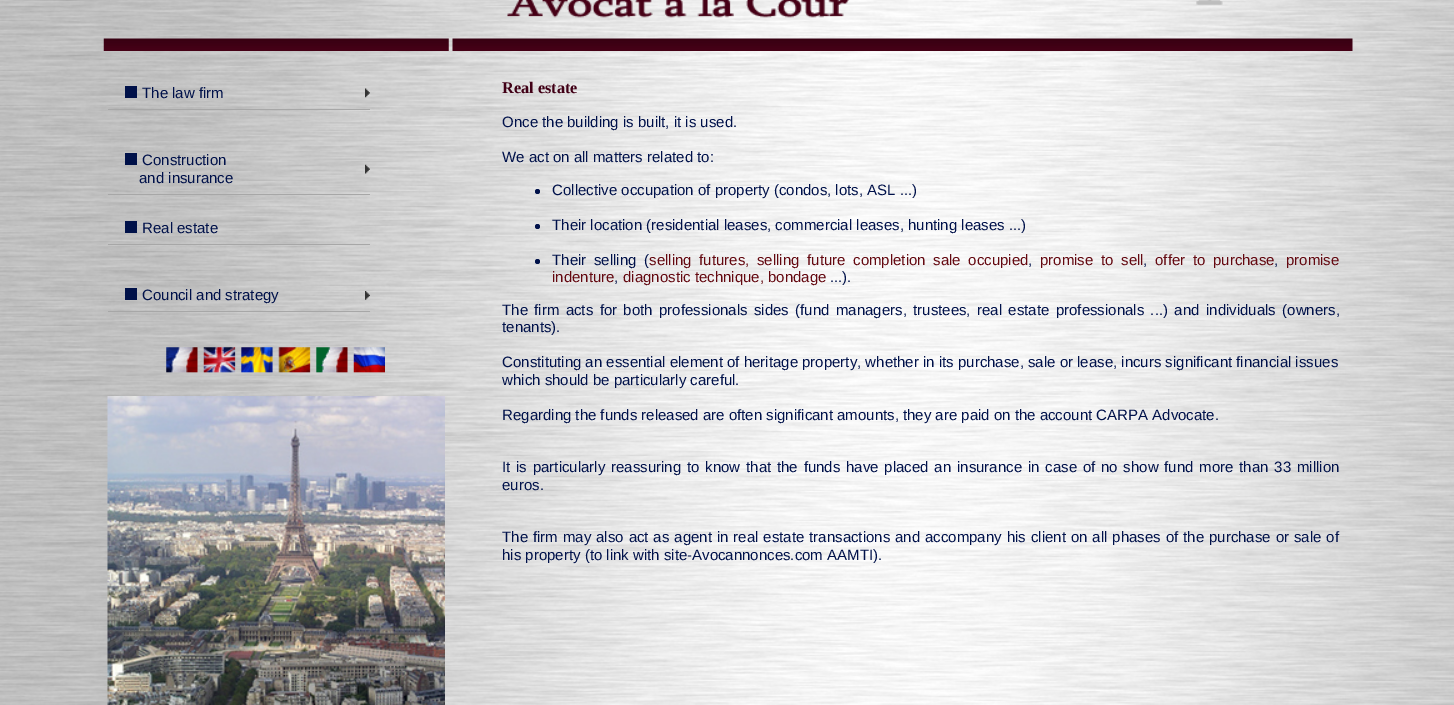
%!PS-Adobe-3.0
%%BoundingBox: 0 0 1454 705
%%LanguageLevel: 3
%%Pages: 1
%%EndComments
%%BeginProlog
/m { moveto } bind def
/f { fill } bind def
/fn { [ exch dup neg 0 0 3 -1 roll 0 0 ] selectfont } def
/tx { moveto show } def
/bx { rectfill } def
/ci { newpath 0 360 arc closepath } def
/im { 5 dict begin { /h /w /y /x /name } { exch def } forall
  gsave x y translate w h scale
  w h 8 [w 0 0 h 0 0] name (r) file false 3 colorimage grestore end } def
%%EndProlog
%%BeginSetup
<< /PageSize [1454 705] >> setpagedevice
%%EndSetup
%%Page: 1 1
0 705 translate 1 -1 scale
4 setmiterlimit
1 setgray
0 0 1454 705 bx
(image0.raw) 0 0 1454 705 im
(image1.raw) 507 0 716 18 im
(image2.raw) 103 38 346 13 im
(image3.raw) 452 38 901 13 im
(image4.raw) 365 88 5 10 im
0.655 setgray
108 109 262 1 bx
0 0.067 0.286 setrgbcolor
125 86 12 12 bx
/LiberationSans-Regular 15 fn
0 0.067 0.29 setrgbcolor
(The law firm) 142 98 tx
(image5.raw) 365 164 5 10 im
0.655 setgray
108 194 262 1 bx
0 0.067 0.286 setrgbcolor
125 153 12 12 bx
0 0.067 0.29 setrgbcolor
(Construction) 142 165 tx
(and insurance) 139 183 tx
0.655 setgray
108 244 262 1 bx
0 0.067 0.286 setrgbcolor
125 221 12 12 bx
0 0.067 0.29 setrgbcolor
(Real estate) 142 233 tx
(image6.raw) 365 291 5 9 im
0.655 setgray
108 311 262 1 bx
0 0.067 0.286 setrgbcolor
125 288 12 12 bx
0 0.067 0.29 setrgbcolor
(Council and strategy) 142 300 tx
(image7.raw) 166 347 32 26 im
(image8.raw) 203 347 33 26 im
(image9.raw) 241 347 32 26 im
(image10.raw) 278 347 33 26 im
(image11.raw) 316 347 32 26 im
(image12.raw) 353 347 32 26 im
(image13.raw) 107 396 338 309 im
/LiberationSerif-Bold 16.25 fn
0.255 0 0.086 setrgbcolor
(Real estate) 502 93 tx
/LiberationSans-Regular 15 fn
0 0.067 0.29 setrgbcolor
(Once the building is built, it is used.) 502 127 tx
(We act on all matters related to:) 502 162 tx
537.5 191.5 2.5 ci f
(Collective occupation of property \(condos, lots, ASL ...\)) 552 195 tx
537.5 226.5 2.5 ci f
(Their location \(residential leases, commercial leases, hunting leases ...\)) 552 230 tx
537.5 261.5 2.5 ci f
552 265 m 3.5 0 32 (Their selling \() widthshow
0.392 0.031 0.063 setrgbcolor
649 265 m 3.5 0 32 (selling futures, selling future completion sale occupied) widthshow
1040 265 m 3.5 0 32 (promise to sell) widthshow
1155 265 m 3.5 0 32 (offer to purchase) widthshow
(promise) 1286 265 tx
0 0.067 0.29 setrgbcolor
(,) 1028 265 tx
(,) 1143 265 tx
(,) 1274 265 tx
0.392 0.031 0.063 setrgbcolor
(indenture) 552 282 tx
0 0.067 0.29 setrgbcolor
(,) 614 282 tx
0.392 0.031 0.063 setrgbcolor
(diagnostic technique, bondage) 623 282 tx
0 0.067 0.29 setrgbcolor
(...\).) 830 282 tx
502 315 m 2.25 0 32 (The firm acts for both professionals sides \(fund managers, trustees, real estate professionals ...\) and individuals \(owners,) widthshow
(tenants\).) 502 332 tx
(Constituting an essential element of heritage property, whether in its purchase, sale or lease, incurs significant financial issues) 502 367 tx
(which should be particularly careful.) 502 385 tx
(Regarding the funds released are often significant amounts, they are paid on the account CARPA Advocate.) 502 420 tx
502 472 m 1.65 0 32 (It is particularly reassuring to know that the funds have placed an insurance in case of no show fund more than 33 million) widthshow
(euros.) 502 490 tx
502 542 m 0.8 0 32 (The firm may also act as agent in real estate transactions and accompany his client on all phases of the purchase or sale of) widthshow
(his property \(to link with site-Avocannonces.com AAMTI\).) 502 560 tx
showpage
%%EOF
